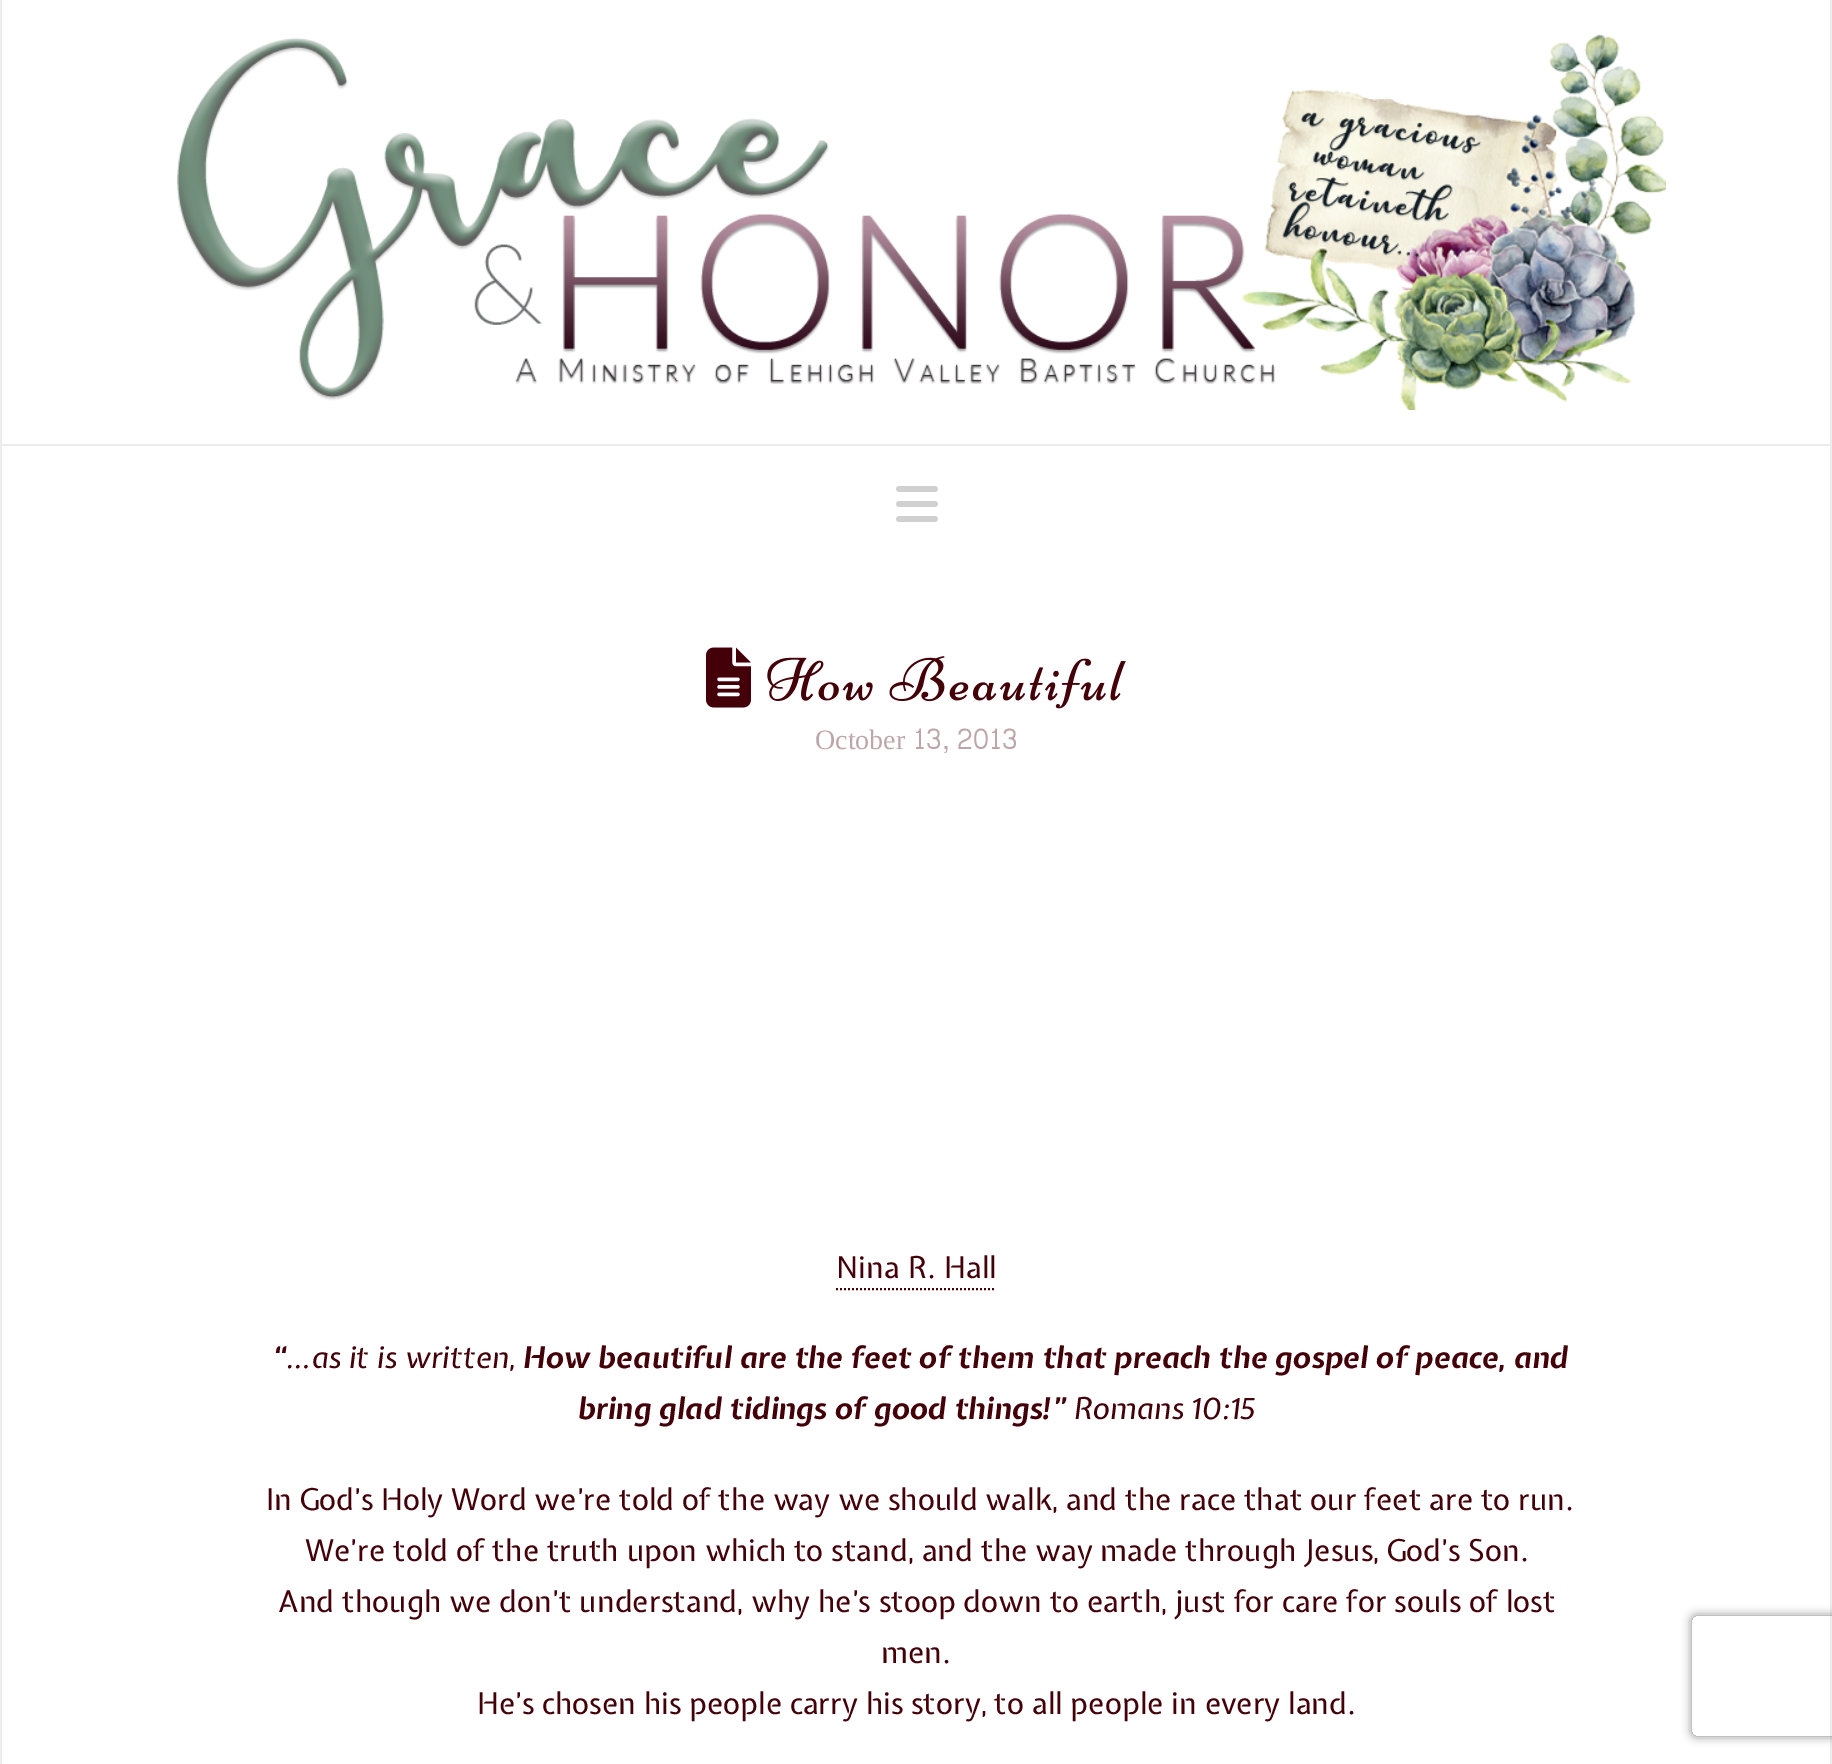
%!PS-Adobe-3.0
%%BoundingBox: 0 0 1832 1764
%%LanguageLevel: 3
%%Pages: 1
%%EndComments
%%BeginProlog
/m { moveto } bind def
/l { lineto } bind def
/c { curveto } bind def
/h { closepath } bind def
/S { stroke } bind def
/q { gsave } bind def
/Q { grestore } bind def
/w { setlinewidth } bind def
/fn { [ exch dup neg 0 0 3 -1 roll 0 0 ] selectfont } def
/tx { moveto show } def
/bx { rectfill } def
/al { dup .setfillconstantalpha .setstrokeconstantalpha } def
/rr { 5 dict begin { /r /h /w /y /x } { exch def } forall
  x r add y moveto x w add y 2 copy h add r arct x w add y h add x 1 index r arct
  x y h add x y r arct x y 2 copy exch w add exch r arct closepath end } def
/sh { 12 dict begin { /a /b /q /h /w /y /x } { exch def } forall gsave /was 0 def
  9 -2 -9 { dup b mul 4 div /e exch def 1 sub .425 mul 2.718 exch exp 1 add a .99 .min exch div /now exch def
    1 1 now sub 1 was sub div sub al /was now def
    w h .min e 2 mul add 0 gt { x e sub y e sub w e 2 mul add h e 2 mul add
      q e add b .6 mul add w h .min 2 div e add .min 0 .max rr fill } if } for grestore end } def
/im { 5 dict begin { /h /w /y /x /name } { exch def } forall
  gsave x y translate w h scale
  w h 8 [w 0 0 h 0 0] name (r) file false 3 colorimage grestore end } def
%%EndProlog
%%BeginSetup
<< /PageSize [1832 1764] /PageUsesTransparency true >> setpagedevice
%%EndSetup
%%Page: 1 1
0 .pushpdf14devicefilter
0 1764 translate 1 -1 scale
4 setmiterlimit
1 setgray
0 0 1832 1764 bx
0.925 setgray
1830 0 2 1764 bx
0 0 2 1764 bx
2 444 1828 2 bx
(image0.raw) 176 34 1490 376 im
(image1.raw) 896 486 42 36 im
(image2.raw) 706 647 45 61 im
(image3.raw) 767 656 359 53 im
/LiberationSerif-Regular 28 fn
0.741 0.651 0.663 setrgbcolor
(October) 815 749 tx
/Siemreap-Regular 28 fn
(13, 2013) 913 749 tx
/ExpletusSans-Regular 30 fn
0.263 0 0.035 setrgbcolor
(Nina R. Hall) 836 1278 tx
2 w
[2 2] 0 setdash
836 1289 m 996 1289 l S
/ExpletusSans-BoldItalic 30 fn
(“) 273 1368 tx
/ExpletusSans-Italic 30 fn
(…as it is written,) 285 1368 tx
/ExpletusSans-BoldItalic 30 fn
(How beautiful are the feet of them that preach the gospel of peace, and) 522 1368 tx
(bring glad tidings of good things!”) 577 1419 tx
/ExpletusSans-Italic 30 fn
(Romans 10:15) 1073 1419 tx
/ExpletusSans-Regular 30 fn
(In God’s Holy Word we’re told of the way we should walk, and the race that our feet are to run.) 266 1510 tx
(We’re told of the truth upon which to stand, and the way made through Jesus, God’s Son.) 305 1561 tx
(And though we don’t understand, why he’s stoop down to earth, just for care for souls of lost) 278 1612 tx
(men.) 881 1663 tx
(He’s chosen his people carry his story, to all people in every land.) 477 1714 tx
q
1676 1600 m 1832 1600 l 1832 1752 l 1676 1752 l h 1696 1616 m 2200 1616 l 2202 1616 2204 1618 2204 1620 c 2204 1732 l 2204 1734 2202 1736 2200 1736 c 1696 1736 l 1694 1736 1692 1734 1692 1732 c 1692 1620 l 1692 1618 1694 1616 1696 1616 c h eoclip newpath
0.502 setgray
1692 1616 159 120 4 5 1 sh
Q
.poppdf14devicefilter showpage
%%EOF
